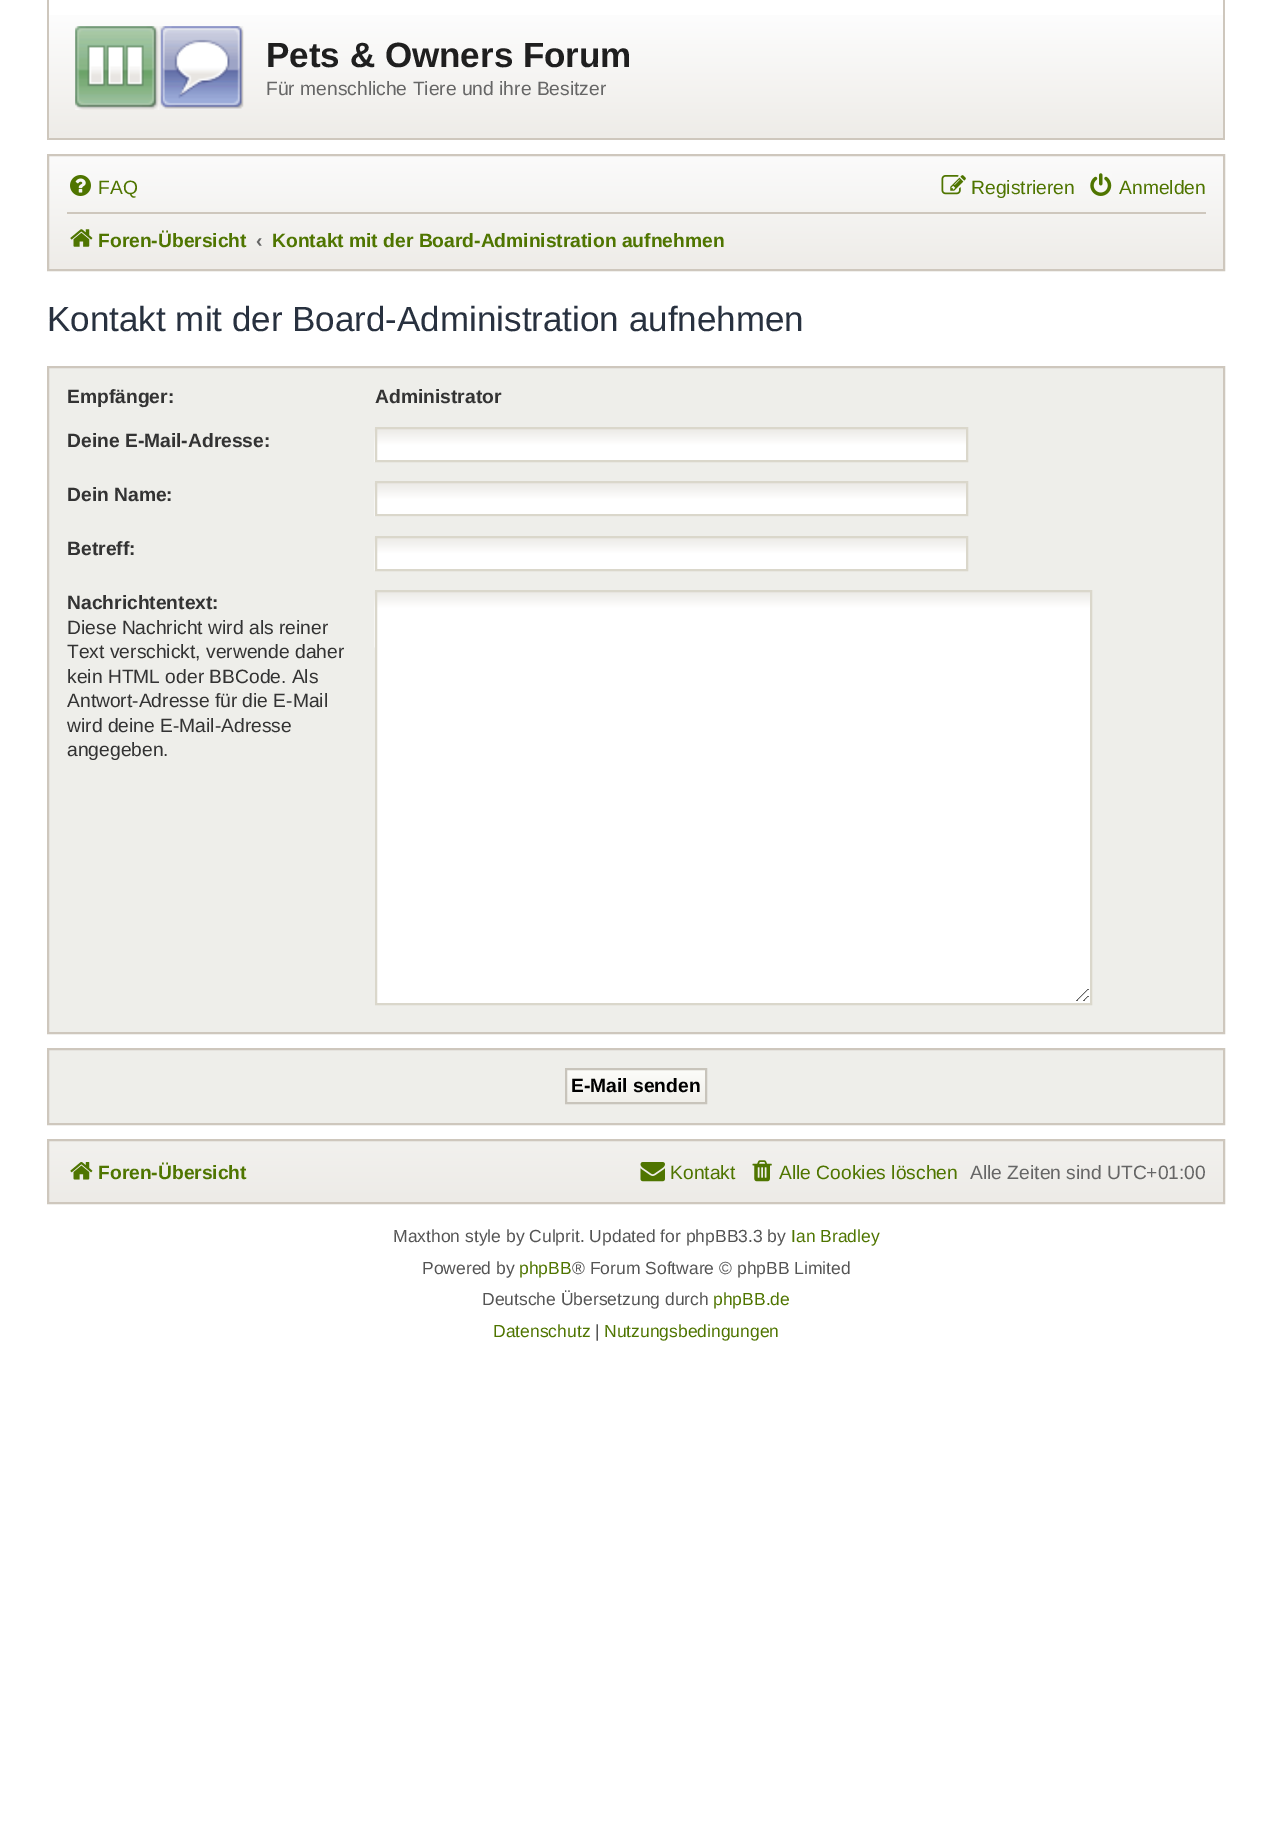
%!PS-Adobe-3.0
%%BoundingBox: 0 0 1271 1848
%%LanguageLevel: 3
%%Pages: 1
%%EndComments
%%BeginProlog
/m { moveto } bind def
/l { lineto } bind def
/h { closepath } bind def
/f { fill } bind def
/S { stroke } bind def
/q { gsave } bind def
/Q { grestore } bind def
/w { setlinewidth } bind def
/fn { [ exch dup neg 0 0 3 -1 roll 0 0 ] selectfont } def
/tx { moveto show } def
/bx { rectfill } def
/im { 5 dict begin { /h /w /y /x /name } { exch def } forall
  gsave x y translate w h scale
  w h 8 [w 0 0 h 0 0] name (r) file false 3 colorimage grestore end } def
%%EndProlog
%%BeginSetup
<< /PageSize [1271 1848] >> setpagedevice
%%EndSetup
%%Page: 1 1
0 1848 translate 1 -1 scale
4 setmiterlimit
1 setgray
0 0 1271 1848 bx
q 49 15 m 1223 15 l 1223 138 l 49 138 l h clip newpath
<< /ShadingType 2 /ColorSpace /DeviceRGB /Coords [636 0 636 138] /Extend [true true] /Function << /FunctionType 2 /Domain [0 1] /C0 [1 1 1] /C1 [0.933 0.925 0.91] /N 1 >> >> shfill Q
0.808 0.78 0.741 setrgbcolor
1223 0 2 140 bx
47 138 1178 2 bx
47 0 2 140 bx
(image0.raw) 75 26 169 84 im
/LiberationSans-Bold 35 fn
0.122 setgray
(Pets & Owners Forum) 266 67 tx
/LiberationSans-Regular 19.25 fn
0.4 setgray
(Für menschliche Tiere und ihre Besitzer) 266 95 tx
q 49 156 m 1223 156 l 1223 269 l 49 269 l h clip newpath
<< /ShadingType 2 /ColorSpace /DeviceRGB /Coords [636 156 636 270] /Extend [true true] /Function << /FunctionType 2 /Domain [0 1] /C0 [0.984 0.984 0.984] /C1 [0.933 0.925 0.91] /N 1 >> >> shfill Q
0.808 0.78 0.741 setrgbcolor
2 w
48 155 1176 115 rectstroke
(image1.raw) 70 175 21 21 im
0.31 0.459 0 setrgbcolor
(FAQ) 98 194 tx
(image2.raw) 941 175 25 20 im
(Registrieren) 971 194 tx
(image3.raw) 1090 173 22 23 im
(Anmelden) 1119 194 tx
0.808 0.78 0.741 setrgbcolor
67 212 1139 2 bx
(image4.raw) 70 229 23 18 im
/LiberationSans-Bold 19.25 fn
0.31 0.459 0 setrgbcolor
(Foren-Übersicht) 98 247 tx
0.4 setgray
(‹) 256 247 tx
0.31 0.459 0 setrgbcolor
(Kontakt mit der Board-Administration aufnehmen) 272 247 tx
/LiberationSans-Regular 35 fn
0.157 0.192 0.247 setrgbcolor
(Kontakt mit der Board-Administration aufnehmen) 47 331 tx
0.933 0.933 0.918 setrgbcolor
48 367 m 1224 367 l 1224 1033 l 48 1033 l h q f Q
0.808 0.78 0.741 setrgbcolor
S
/LiberationSans-Bold 19.25 fn
0.2 setgray
(Empfänger:) 67 403 tx
(Administrator) 375 403 tx
(Deine E-Mail-Adresse:) 67 447 tx
(image5.raw) 374 428 592 34 im
0.855 0.843 0.796 setrgbcolor
376 428 591 33 rectstroke
0.2 setgray
(Dein Name:) 67 501 tx
(image6.raw) 374 483 594 34 im
0.855 0.843 0.796 setrgbcolor
376 482 591 33 rectstroke
0.2 setgray
(Betreff:) 67 555 tx
(image7.raw) 374 537 592 34 im
0.855 0.843 0.796 setrgbcolor
376 537 591 33 rectstroke
0.2 setgray
(Nachrichtentext:) 67 609 tx
/LiberationSans-Regular 19.25 fn
(Diese Nachricht wird als reiner) 67 634 tx
(Text verschickt, verwende daher) 67 658 tx
(kein HTML oder BBCode. Als) 67 683 tx
(Antwort-Adresse für die E-Mail) 67 707 tx
q
67 583 1139 439 rectclip
(wird deine E-Mail-Adresse) 67 732 tx
Q
(angegeben.) 67 756 tx
1 setgray
377 647 713 356 bx
(image8.raw) 374 591 716 410 im
0.855 0.843 0.796 setrgbcolor
376 591 715 413 rectstroke
0.933 0.933 0.918 setrgbcolor
48 1049 m 1224 1049 l 1224 1124 l 48 1124 l h q f Q
0.808 0.78 0.741 setrgbcolor
S
q 567 1070 m 705 1070 l 705 1102 l 567 1102 l h clip newpath
<< /ShadingType 2 /ColorSpace /DeviceRGB /Coords [636 1069 636 1103] /Extend [true true] /Function << /FunctionType 2 /Domain [0 1] /C0 [0.988 0.988 0.98] /C1 [0.945 0.941 0.918] /N 1 >> >> shfill Q
0.784 0.769 0.733 setrgbcolor
566 1069 140 34 rectstroke
/LiberationSans-Bold 19.25 fn
0 setgray
(E-Mail senden) 571 1092 tx
q 49 1141 m 1223 1141 l 1223 1202 l 49 1202 l h clip newpath
<< /ShadingType 2 /ColorSpace /DeviceRGB /Coords [636 1141 636 1202] /Extend [true true] /Function << /FunctionType 2 /Domain [0 1] /C0 [0.949 0.945 0.933] /C1 [0.929 0.922 0.906] /N 1 >> >> shfill Q
0.808 0.78 0.741 setrgbcolor
48 1140 1176 63 rectstroke
(image9.raw) 70 1162 23 18 im
0.31 0.459 0 setrgbcolor
(Foren-Übersicht) 98 1179 tx
(image10.raw) 640 1162 25 20 im
/LiberationSans-Regular 19.25 fn
(Kontakt) 670 1179 tx
(image11.raw) 752 1160 20 22 im
(Alle Cookies löschen) 779 1179 tx
0.4 setgray
(Alle Zeiten sind UTC+01:00) 970 1179 tx
/LiberationSans-Regular 17.5 fn
0.333 setgray
(Maxthon style by Culprit. Updated for phpBB3.3 by) 393 1242 tx
0.31 0.459 0 setrgbcolor
(Ian Bradley) 791 1242 tx
0.333 setgray
(Powered by) 422 1274 tx
0.31 0.459 0 setrgbcolor
(phpBB) 519 1274 tx
0.333 setgray
(® Forum Software © phpBB Limited) 572 1274 tx
(Deutsche Übersetzung durch) 482 1305 tx
0.31 0.459 0 setrgbcolor
(phpBB.de) 713 1305 tx
(Datenschutz) 493 1337 tx
0.333 setgray
(|) 595 1337 tx
0.31 0.459 0 setrgbcolor
(Nutzungsbedingungen) 604 1337 tx
showpage
%%EOF
